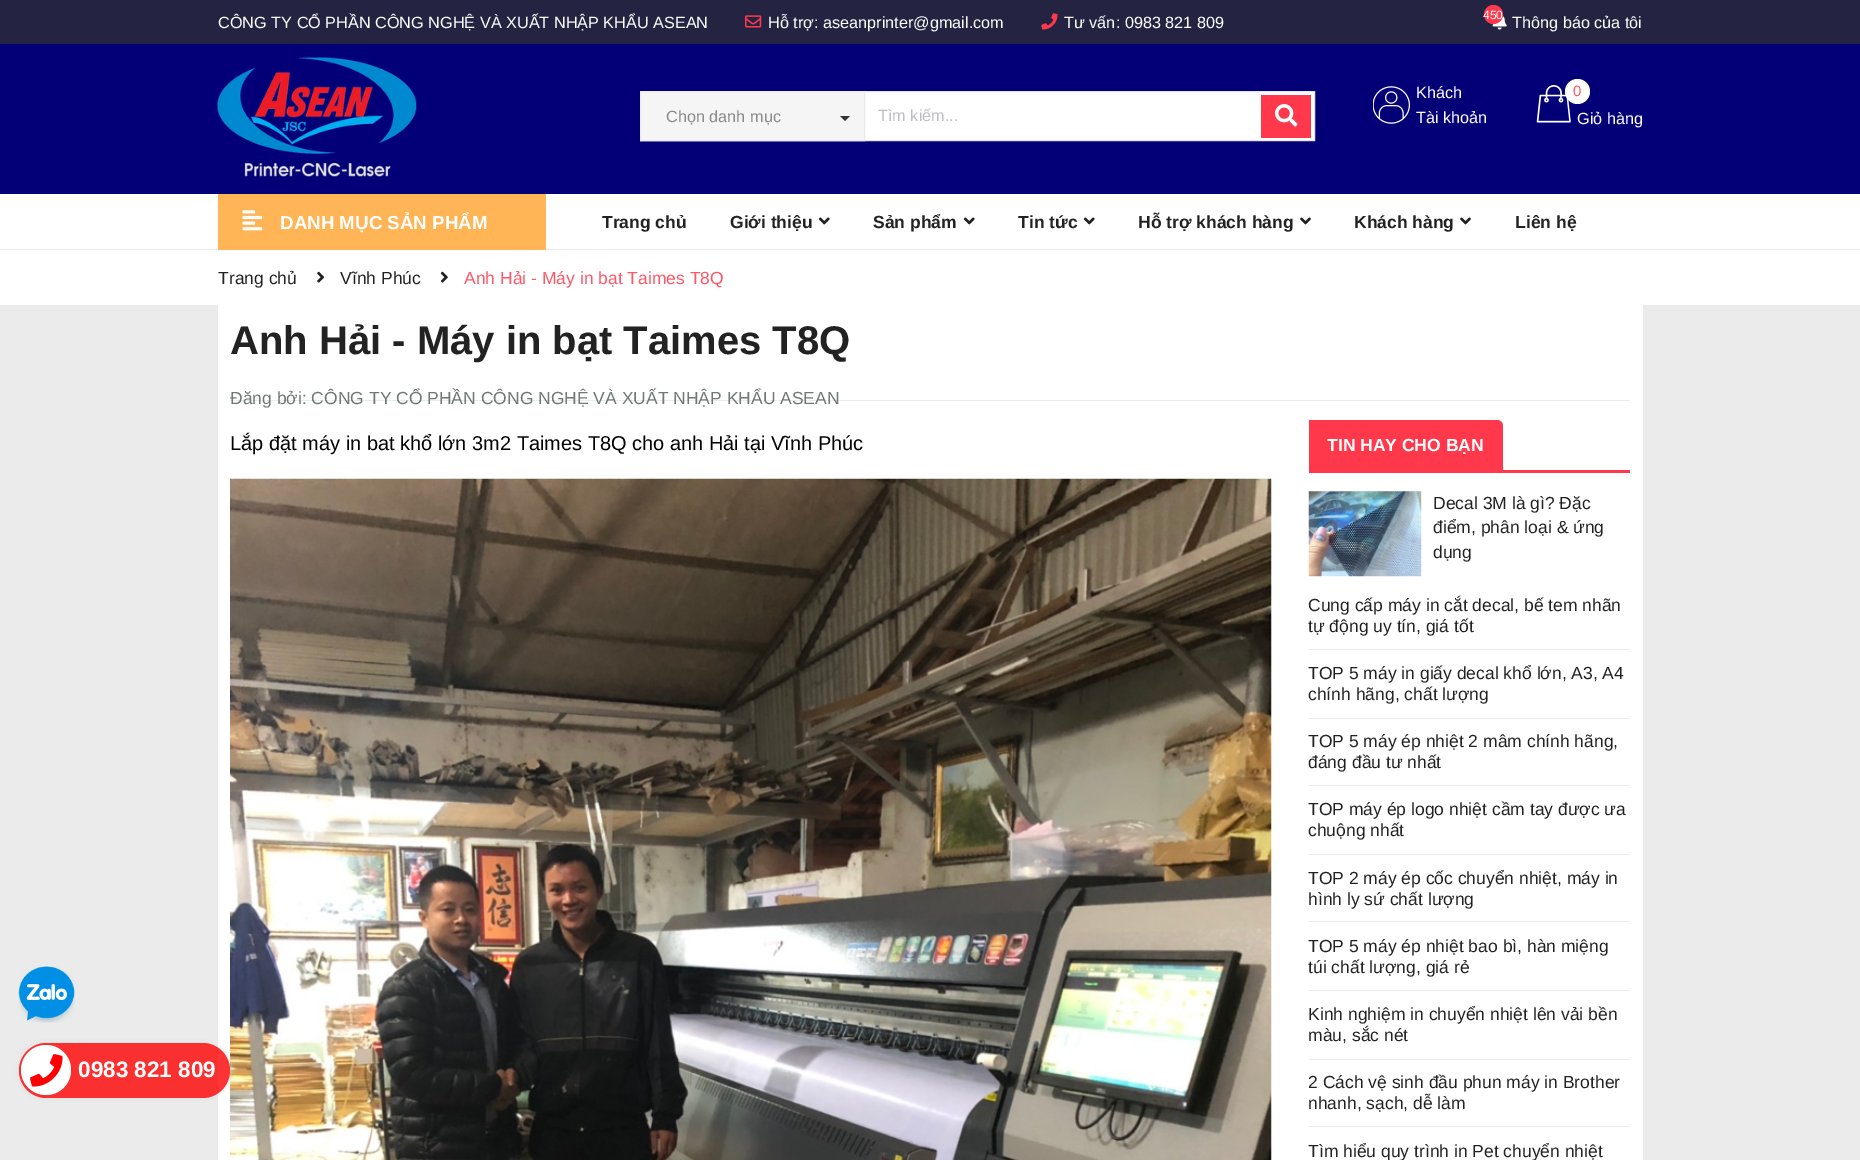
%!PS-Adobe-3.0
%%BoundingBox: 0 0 1860 1160
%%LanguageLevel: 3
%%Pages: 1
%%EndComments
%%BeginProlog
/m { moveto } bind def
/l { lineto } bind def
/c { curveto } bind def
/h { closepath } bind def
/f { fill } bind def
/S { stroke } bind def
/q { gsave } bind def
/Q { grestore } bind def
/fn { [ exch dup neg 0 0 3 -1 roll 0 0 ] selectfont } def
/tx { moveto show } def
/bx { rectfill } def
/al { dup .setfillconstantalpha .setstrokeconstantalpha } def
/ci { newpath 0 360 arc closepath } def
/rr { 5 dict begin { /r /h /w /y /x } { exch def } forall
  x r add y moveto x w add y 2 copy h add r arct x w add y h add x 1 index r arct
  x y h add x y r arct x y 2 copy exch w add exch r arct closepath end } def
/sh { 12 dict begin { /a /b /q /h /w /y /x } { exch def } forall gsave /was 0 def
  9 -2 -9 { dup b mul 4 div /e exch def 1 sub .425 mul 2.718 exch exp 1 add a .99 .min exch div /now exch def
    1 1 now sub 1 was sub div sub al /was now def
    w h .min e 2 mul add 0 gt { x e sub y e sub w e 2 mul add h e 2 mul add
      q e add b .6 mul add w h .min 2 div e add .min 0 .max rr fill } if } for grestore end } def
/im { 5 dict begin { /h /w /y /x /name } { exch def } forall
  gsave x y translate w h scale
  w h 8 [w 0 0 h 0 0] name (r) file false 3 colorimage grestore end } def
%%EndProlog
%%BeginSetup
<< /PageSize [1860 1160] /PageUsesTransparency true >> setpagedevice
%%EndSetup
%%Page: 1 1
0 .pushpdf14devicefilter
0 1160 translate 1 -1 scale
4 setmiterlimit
1 setgray
0 0 1860 1160 bx
0.922 setgray
0 305 1860 855 bx
(image0.raw) 18 966 57 57 im
0.141 0.141 0.259 setrgbcolor
0 0 1860 44 bx
/LiberationSans-Regular 16.25 fn
1 setgray
(CÔNG TY CỔ PHẦN CÔNG NGHỆ VÀ XUẤT NHẬP KHẨU ASEAN) 218 28 tx
(image1.raw) 745 15 17 13 im
(Hỗ trợ: aseanprinter@gmail.com) 768 28 tx
(image2.raw) 1041 13 17 17 im
(Tư vấn: 0983 821 809) 1064 28 tx
(image3.raw) 1492 15 15 15 im
1 0.22 0.294 setrgbcolor
1493.5 14.5 9.5 ci f
/LiberationSans-Regular 12 fn
1 setgray
(450) 1483 19 tx
/LiberationSans-Regular 16.25 fn
(Thông báo của tôi) 1512 28 tx
0.012 0 0.467 setrgbcolor
0 44 1860 150 bx
(image4.raw) 217 57 200 120 im
1 setgray
865 92 449 48 bx
0.898 0.902 0.925 setrgbcolor
640.5 91.5 674 49 rectstroke
0.961 setgray
640.5 91.5 m 864.5 91.5 l 864.5 140.5 l 640.5 140.5 l h q f Q
0.922 setgray
S
0.537 setgray
(Chọn danh mục) 666 122 tx
0.2 setgray
840 116 m 850 116 l 845 121 l h f
0.741 0.741 0.776 setrgbcolor
(Tìm kiếm...) 878 121 tx
1 0.22 0.294 setrgbcolor
1261 95 50 43 bx
(image5.raw) 1275 104 23 23 im
(image6.raw) 1373 86 37 38 im
1 setgray
(Khách) 1416 98 tx
(Tài khoản) 1416 123 tx
(image7.raw) 1536 85 35 38 im
1577.5 91.5 12.5 ci f
/LiberationSans-Regular 15 fn
0.996 0.341 0.404 setrgbcolor
(0) 1573 96 tx
/LiberationSans-Regular 16.25 fn
1 setgray
(Giỏ hàng) 1577 124 tx
0.922 setgray
0 249 1860 1 bx
1 0.706 0.337 setrgbcolor
218 194 328 56 bx
(image8.raw) 242 210 21 21 im
/LiberationSans-Bold 18.75 fn
1 setgray
(DANH MỤC SẢN PHẨM) 280 229 tx
/LiberationSans-Bold 17.5 fn
0.133 setgray
(Trang chủ) 602 228 tx
(Giới thiệu) 730 228 tx
(image9.raw) 818 217 12 8 im
(Sản phẩm) 873 228 tx
(image9.raw) 963 217 12 8 im
(Tin tức) 1018 228 tx
(image9.raw) 1083 217 12 8 im
(Hỗ trợ khách hàng) 1138 228 tx
(image10.raw) 1300 217 11 8 im
(Khách hàng) 1354 228 tx
(image10.raw) 1460 217 11 8 im
(Liên hệ) 1515 228 tx
/LiberationSans-Regular 17.5 fn
(Trang chủ) 218 284 tx
(image11.raw) 317 271 8 12 im
(Vĩnh Phúc) 340 284 tx
(image12.raw) 440 271 8 12 im
0.996 0.341 0.404 setrgbcolor
(Anh Hải - Máy in bạt Taimes T8Q) 464 284 tx
1 setgray
218 305 1425 855 bx
/LiberationSans-Bold 40 fn
0.133 setgray
(Anh Hải - Máy in bạt Taimes T8Q) 230 354 tx
0.922 setgray
230 400 1400 1 bx
/LiberationSans-Regular 17.5 fn
0.431 0.471 0.455 setrgbcolor
(Đăng bởi: CÔNG TY CỔ PHẦN CÔNG NGHỆ VÀ XUẤT NHẬP KHẨU ASEAN) 230 404 tx
/LiberationSans-Regular 20 fn
0 setgray
(Lắp đặt máy in bat khổ lớn 3m2 Taimes T8Q cho anh Hải tại Vĩnh Phúc) 230 450 tx
(image13.raw) 230 478 1042 682 im
1 0.22 0.294 setrgbcolor
1309 470 321 3 bx
1309 420 m 1497 420 l 1500.5 420 1503 422.5 1503 426 c 1503 470 l 1309 470 l h f
/LiberationSans-Bold 17.5 fn
1 setgray
(TIN HAY CHO BẠN) 1327 451 tx
(image14.raw) 1308 491 114 86 im
/LiberationSans-Regular 17.5 fn
0.133 setgray
(Decal 3M là gì? Đặc) 1433 509 tx
(điểm, phân loại & ứng) 1433 533 tx
(dụng) 1433 558 tx
0.922 setgray
1309 649 321 1 bx
0.133 setgray
(Cung cấp máy in cắt decal, bế tem nhãn) 1308 611 tx
(tự động uy tín, giá tốt) 1308 632 tx
0.922 setgray
1309 718 321 1 bx
0.133 setgray
(TOP 5 máy in giấy decal khổ lớn, A3, A4) 1308 679 tx
(chính hãng, chất lượng) 1308 700 tx
0.922 setgray
1309 785 321 1 bx
0.133 setgray
(TOP 5 máy ép nhiệt 2 mâm chính hãng,) 1308 747 tx
(đáng đầu tư nhất) 1308 768 tx
0.922 setgray
1309 854 321 1 bx
0.133 setgray
(TOP máy ép logo nhiệt cầm tay được ưa) 1308 815 tx
(chuộng nhất) 1308 836 tx
0.922 setgray
1309 921 321 1 bx
0.133 setgray
(TOP 2 máy ép cốc chuyển nhiệt, máy in) 1308 884 tx
(hình ly sứ chất lượng) 1308 905 tx
0.922 setgray
1309 990 321 1 bx
0.133 setgray
(TOP 5 máy ép nhiệt bao bì, hàn miệng) 1308 952 tx
(túi chất lượng, giá rẻ) 1308 973 tx
0.922 setgray
1309 1059 321 1 bx
0.133 setgray
(Kinh nghiệm in chuyển nhiệt lên vải bền) 1308 1020 tx
(màu, sắc nét) 1308 1041 tx
0.922 setgray
1309 1126 321 1 bx
0.133 setgray
(2 Cách vệ sinh đầu phun máy in Brother) 1308 1088 tx
(nhanh, sạch, dễ làm) 1308 1109 tx
(Tìm hiểu quy trình in Pet chuyển nhiệt) 1308 1157 tx
q
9 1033 m 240 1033 l 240 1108 l 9 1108 l h 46.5 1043 m 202.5 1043 l 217.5 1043 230 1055.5 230 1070.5 c 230 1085.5 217.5 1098 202.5 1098 c 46.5 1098 l 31.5 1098 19 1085.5 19 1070.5 c 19 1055.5 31.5 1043 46.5 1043 c h eoclip newpath
0.867 setgray
19 1043 211 55 27.5 3 1 sh
Q
0.8 al
0.996 0 0 setrgbcolor
19 1043 211 55 27.5 rr f
1 al
1 setgray
46 1070 25 ci f
(image15.raw) 30 1054 33 33 im
/LiberationSans-Bold 22.5 fn
(0983 821 809) 78 1077 tx
.poppdf14devicefilter showpage
%%EOF
